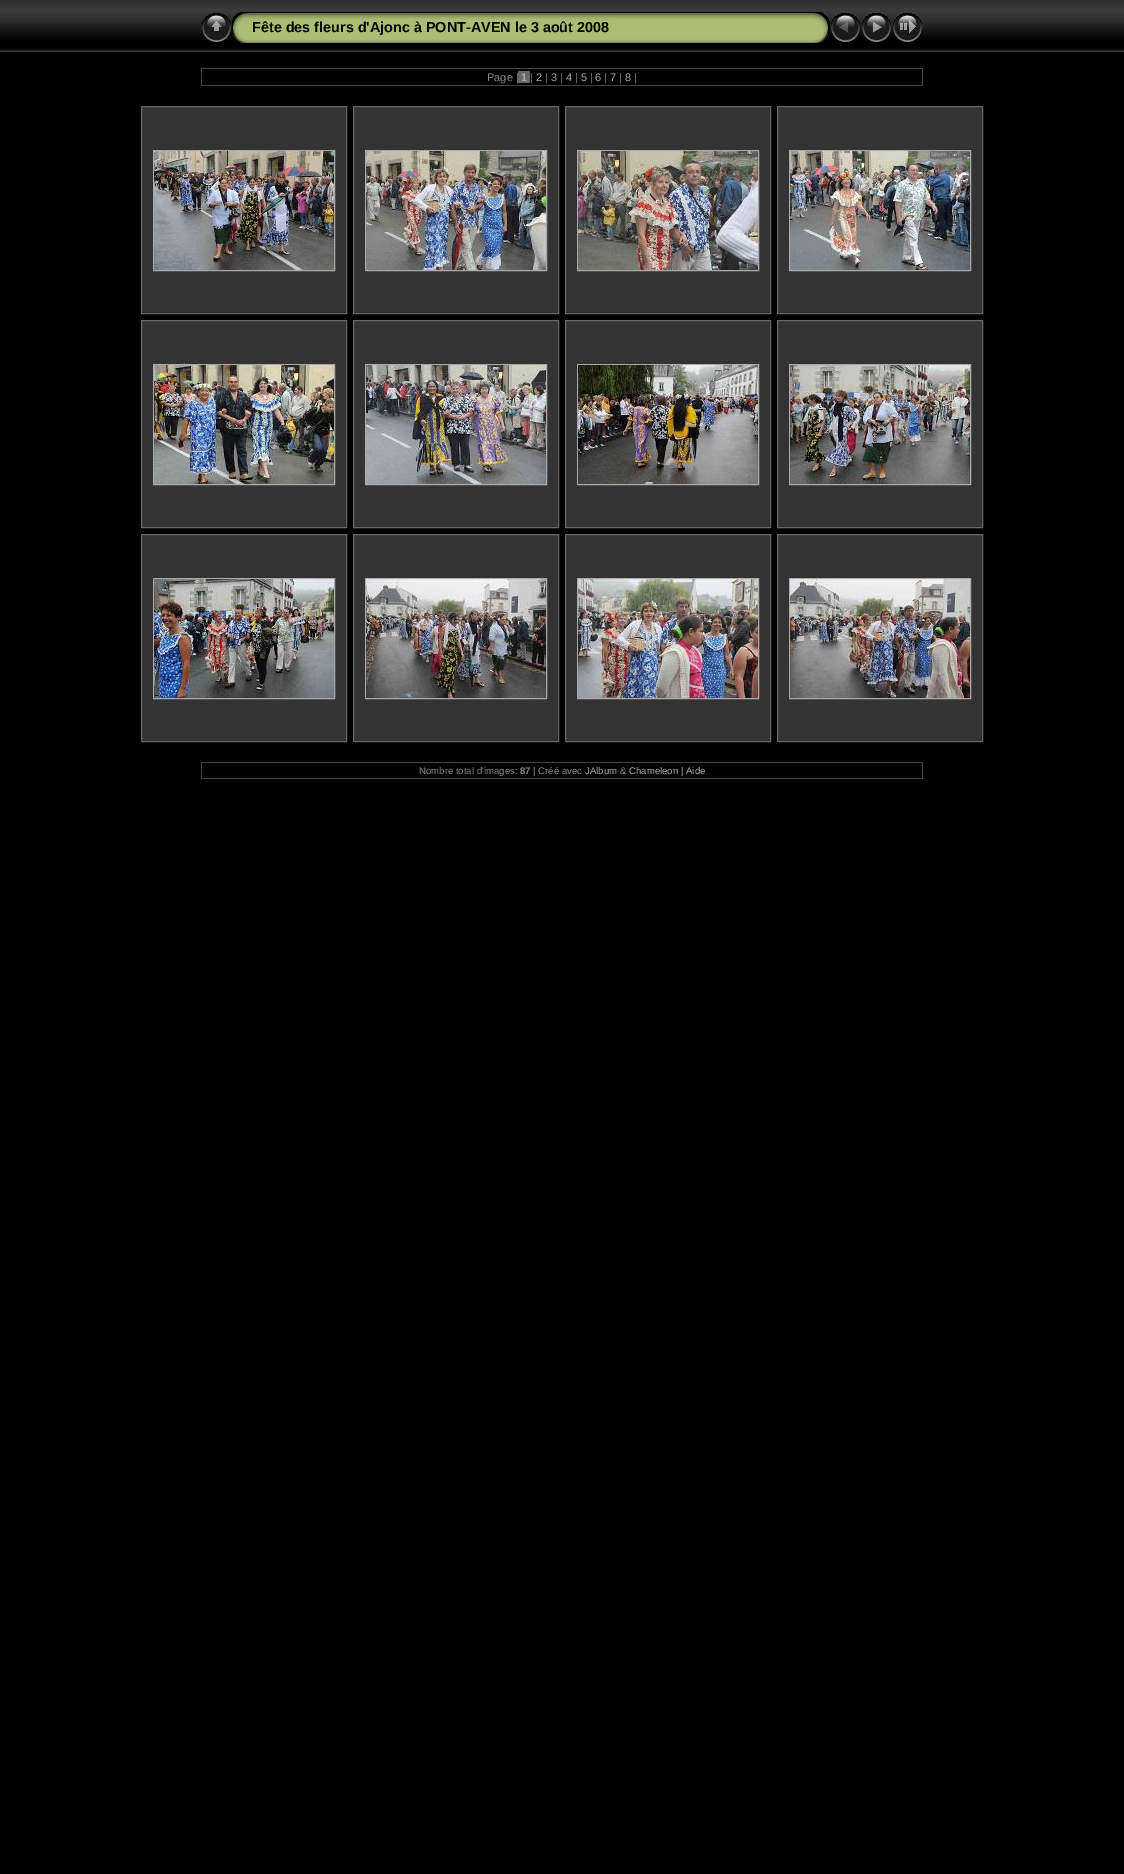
%!PS-Adobe-3.0
%%BoundingBox: 0 0 1124 1874
%%LanguageLevel: 3
%%Pages: 1
%%EndComments
%%BeginProlog
/m { moveto } bind def
/l { lineto } bind def
/h { closepath } bind def
/f { fill } bind def
/S { stroke } bind def
/q { gsave } bind def
/Q { grestore } bind def
/fn { [ exch dup neg 0 0 3 -1 roll 0 0 ] selectfont } def
/tx { moveto show } def
/bx { rectfill } def
/im { 5 dict begin { /h /w /y /x /name } { exch def } forall
  gsave x y translate w h scale
  w h 8 [w 0 0 h 0 0] name (r) file false 3 colorimage grestore end } def
%%EndProlog
%%BeginSetup
<< /PageSize [1124 1874] >> setpagedevice
%%EndSetup
%%Page: 1 1
0 1874 translate 1 -1 scale
4 setmiterlimit
0 setgray
0 0 1124 1874 bx
(image0.raw) 0 0 1124 52 im
(image1.raw) 202 13 29 29 im
(image2.raw) 232 12 20 31 im
(image3.raw) 252 12 558 31 im
/LiberationSans-Bold 14.4 fn
(Fête des fleurs d'Ajonc à PONT-AVEN le 3 août 2008) 252 32 tx
(image4.raw) 810 12 20 31 im
(image5.raw) 831 13 29 29 im
(image6.raw) 862 13 29 29 im
(image7.raw) 893 13 29 29 im
0.267 setgray
201 68 722 1 bx
922 68 1 18 bx
201 85 722 1 bx
201 68 1 18 bx
/LiberationSans-Regular 11 fn
0.533 setgray
(Page |) 487 81 tx
0.4 setgray
518 71 12 12 bx
/LiberationSans-Bold 11 fn
0.667 setgray
(1) 521 81 tx
/LiberationSans-Regular 11 fn
0.533 setgray
(|) 530 81 tx
0.667 setgray
(2) 536 81 tx
0.533 setgray
(|) 545 81 tx
0.667 setgray
(3) 551 81 tx
0.533 setgray
(|) 560 81 tx
0.667 setgray
(4) 566 81 tx
0.533 setgray
(|) 575 81 tx
0.667 setgray
(5) 581 81 tx
0.533 setgray
(|) 590 81 tx
0.667 setgray
(6) 595 81 tx
0.533 setgray
(|) 604 81 tx
0.667 setgray
(7) 610 81 tx
0.533 setgray
(|) 619 81 tx
0.667 setgray
(8) 625 81 tx
0.533 setgray
(|) 634 81 tx
0.2 setgray
141.5 106.5 m 346.5 106.5 l 346.5 313.5 l 141.5 313.5 l h q f Q
0.4 setgray
S
0.667 setgray
153.5 150.5 181 120 rectstroke
(image8.raw) 154 151 180 119 im
0.2 setgray
353.5 106.5 m 558.5 106.5 l 558.5 313.5 l 353.5 313.5 l h q f Q
0.4 setgray
S
0.667 setgray
365.5 150.5 181 120 rectstroke
(image9.raw) 366 151 180 119 im
0.2 setgray
565.5 106.5 m 770.5 106.5 l 770.5 313.5 l 565.5 313.5 l h q f Q
0.4 setgray
S
0.667 setgray
577.5 150.5 181 120 rectstroke
(image10.raw) 578 151 180 119 im
0.2 setgray
777.5 106.5 m 982.5 106.5 l 982.5 313.5 l 777.5 313.5 l h q f Q
0.4 setgray
S
0.667 setgray
789.5 150.5 181 120 rectstroke
(image11.raw) 790 151 180 119 im
0.2 setgray
141.5 320.5 m 346.5 320.5 l 346.5 527.5 l 141.5 527.5 l h q f Q
0.4 setgray
S
0.667 setgray
153.5 364.5 181 120 rectstroke
(image12.raw) 154 365 180 119 im
0.2 setgray
353.5 320.5 m 558.5 320.5 l 558.5 527.5 l 353.5 527.5 l h q f Q
0.4 setgray
S
0.667 setgray
365.5 364.5 181 120 rectstroke
(image13.raw) 366 365 180 119 im
0.2 setgray
565.5 320.5 m 770.5 320.5 l 770.5 527.5 l 565.5 527.5 l h q f Q
0.4 setgray
S
0.667 setgray
577.5 364.5 181 120 rectstroke
(image14.raw) 578 365 180 119 im
0.2 setgray
777.5 320.5 m 982.5 320.5 l 982.5 527.5 l 777.5 527.5 l h q f Q
0.4 setgray
S
0.667 setgray
789.5 364.5 181 120 rectstroke
(image15.raw) 790 365 180 119 im
0.2 setgray
141.5 534.5 m 346.5 534.5 l 346.5 741.5 l 141.5 741.5 l h q f Q
0.4 setgray
S
0.667 setgray
153.5 578.5 181 120 rectstroke
(image16.raw) 154 579 180 119 im
0.2 setgray
353.5 534.5 m 558.5 534.5 l 558.5 741.5 l 353.5 741.5 l h q f Q
0.4 setgray
S
0.667 setgray
365.5 578.5 181 120 rectstroke
(image17.raw) 366 579 180 119 im
0.2 setgray
565.5 534.5 m 770.5 534.5 l 770.5 741.5 l 565.5 741.5 l h q f Q
0.4 setgray
S
0.667 setgray
577.5 578.5 181 120 rectstroke
(image18.raw) 578 579 180 119 im
0.2 setgray
777.5 534.5 m 982.5 534.5 l 982.5 741.5 l 777.5 741.5 l h q f Q
0.4 setgray
S
0.667 setgray
789.5 578.5 181 120 rectstroke
(image19.raw) 790 579 180 119 im
0.267 setgray
201 762 722 1 bx
922 762 1 17 bx
201 778 722 1 bx
201 762 1 17 bx
/LiberationSans-Regular 9.6 fn
0.533 setgray
(Nombre total d'images:) 419 774 tx
/LiberationSans-Bold 9.6 fn
(87) 520 774 tx
/LiberationSans-Regular 9.6 fn
(| Créé avec) 533 774 tx
0.667 setgray
(JAlbum) 585 774 tx
0.533 setgray
(&) 620 774 tx
0.667 setgray
(Chameleon) 629 774 tx
0.533 setgray
(|) 681 774 tx
0.667 setgray
(Aide) 686 774 tx
showpage
%%EOF
